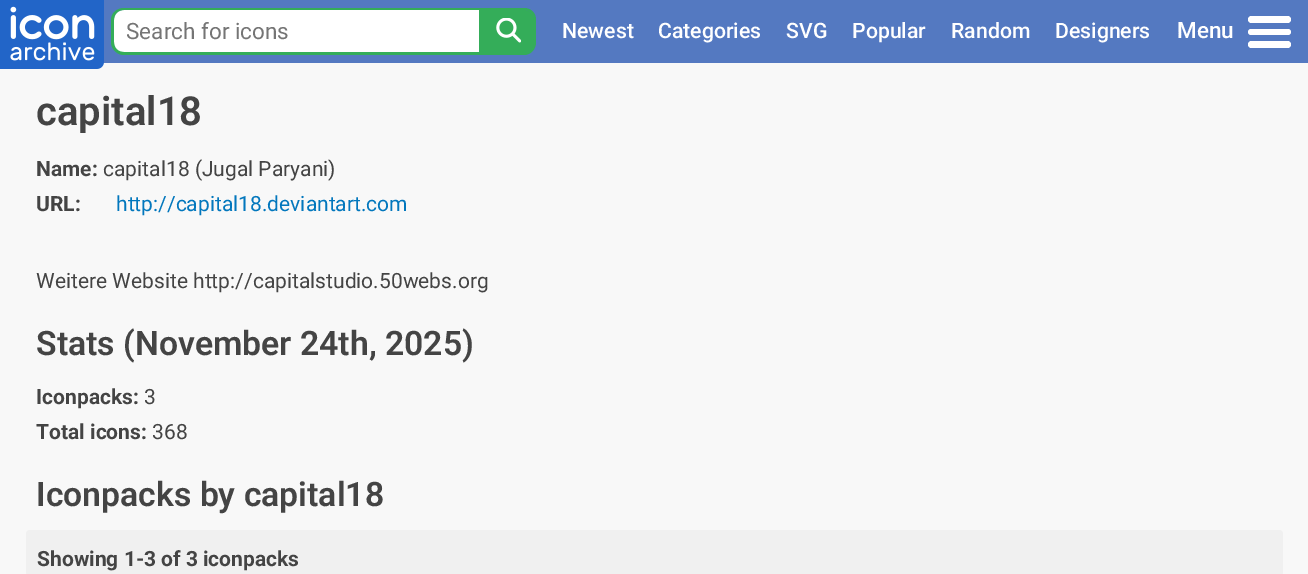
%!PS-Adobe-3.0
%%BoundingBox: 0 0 1308 574
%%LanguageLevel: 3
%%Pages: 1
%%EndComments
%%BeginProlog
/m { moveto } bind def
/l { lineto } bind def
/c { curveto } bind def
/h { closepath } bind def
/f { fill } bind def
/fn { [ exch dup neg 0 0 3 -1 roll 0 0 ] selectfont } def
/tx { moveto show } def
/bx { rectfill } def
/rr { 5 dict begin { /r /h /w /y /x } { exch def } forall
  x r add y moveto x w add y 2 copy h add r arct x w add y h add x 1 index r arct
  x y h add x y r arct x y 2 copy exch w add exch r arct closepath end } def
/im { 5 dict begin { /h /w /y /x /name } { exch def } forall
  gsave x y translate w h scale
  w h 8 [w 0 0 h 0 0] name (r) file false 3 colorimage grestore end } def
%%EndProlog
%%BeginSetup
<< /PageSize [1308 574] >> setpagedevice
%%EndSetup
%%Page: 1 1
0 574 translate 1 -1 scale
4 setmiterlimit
0.973 setgray
0 0 1308 574 bx
0.329 0.475 0.757 setrgbcolor
103 0 1205 63 bx
(image0.raw) 0 0 104 69 im
1 setgray
124 10 m 479 10 l 479 53 l 124 53 l 118.5 53 114 48.5 114 43 c 114 20 l 114 14.5 118.5 10 124 10 c h f
0.204 0.678 0.349 setrgbcolor
124 8 m 479 8 l 479 55 l 124 55 l 117 55 111 49 111 42 c 111 20 l 111 13 117 8 124 8 c h 124 10 m 479 10 l 479 52 l 124 52 l 118 52 114 48 114 42 c 114 20 l 114 14 118 10 124 10 c h eofill
/Roboto-Regular 22.5 fn
0.459 setgray
(Search for icons) 126 39 tx
0.204 0.678 0.349 setrgbcolor
479 10 m 524 10 l 529.5 10 534 14.5 534 20 c 534 43 l 534 48.5 529.5 53 524 53 c 479 53 l h f
479 8 m 524 8 l 531 8 536 13 536 20 c 536 42 l 536 49 531 55 524 55 c 479 55 l h 479 10 m 524 10 l 529 10 534 14 534 20 c 534 42 l 534 48 529 52 524 52 c 479 52 l h eofill
(image1.raw) 496 18 25 25 im
/Roboto-Medium 21.25 fn
1 setgray
(Newest) 562 38 tx
(Categories) 658 38 tx
(SVG) 786 38 tx
(Popular) 852 38 tx
(Random) 951 38 tx
(Designers) 1055 38 tx
/Roboto-Medium 22.5 fn
(Menu) 1177 38 tx
1248 16 43 7 3.5 rr f
1248 29 43 6 3 rr f
1248 41 43 7 3.5 rr f
/Roboto-SemiBold 40 fn
0.267 setgray
(capital18) 36 125 tx
/Roboto-Bold 21 fn
(Name:) 36 176 tx
/Roboto-Regular 21 fn
(capital18 \(Jugal Paryani\)) 103 176 tx
/Roboto-Bold 21 fn
(URL:) 36 211 tx
/Roboto-Regular 21 fn
0.008 0.467 0.741 setrgbcolor
(http://capital18.deviantart.com) 116 211 tx
0.267 setgray
(Weitere Website http://capitalstudio.50webs.org) 36 288 tx
/Roboto-SemiBold 33.75 fn
(Stats \(November 24th, 2025\)) 36 355 tx
/Roboto-Bold 21 fn
(Iconpacks:) 36 404 tx
/Roboto-Regular 21 fn
(3) 144 404 tx
/Roboto-Bold 21 fn
(Total icons:) 36 439 tx
/Roboto-Regular 21 fn
(368) 152 439 tx
/Roboto-SemiBold 33.75 fn
(Iconpacks by capital18) 36 506 tx
0.941 setgray
26 530 1257 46 4 rr f
/Roboto-Bold 21 fn
0.267 setgray
(Showing 1-3 of 3 iconpacks) 37 566 tx
showpage
%%EOF
